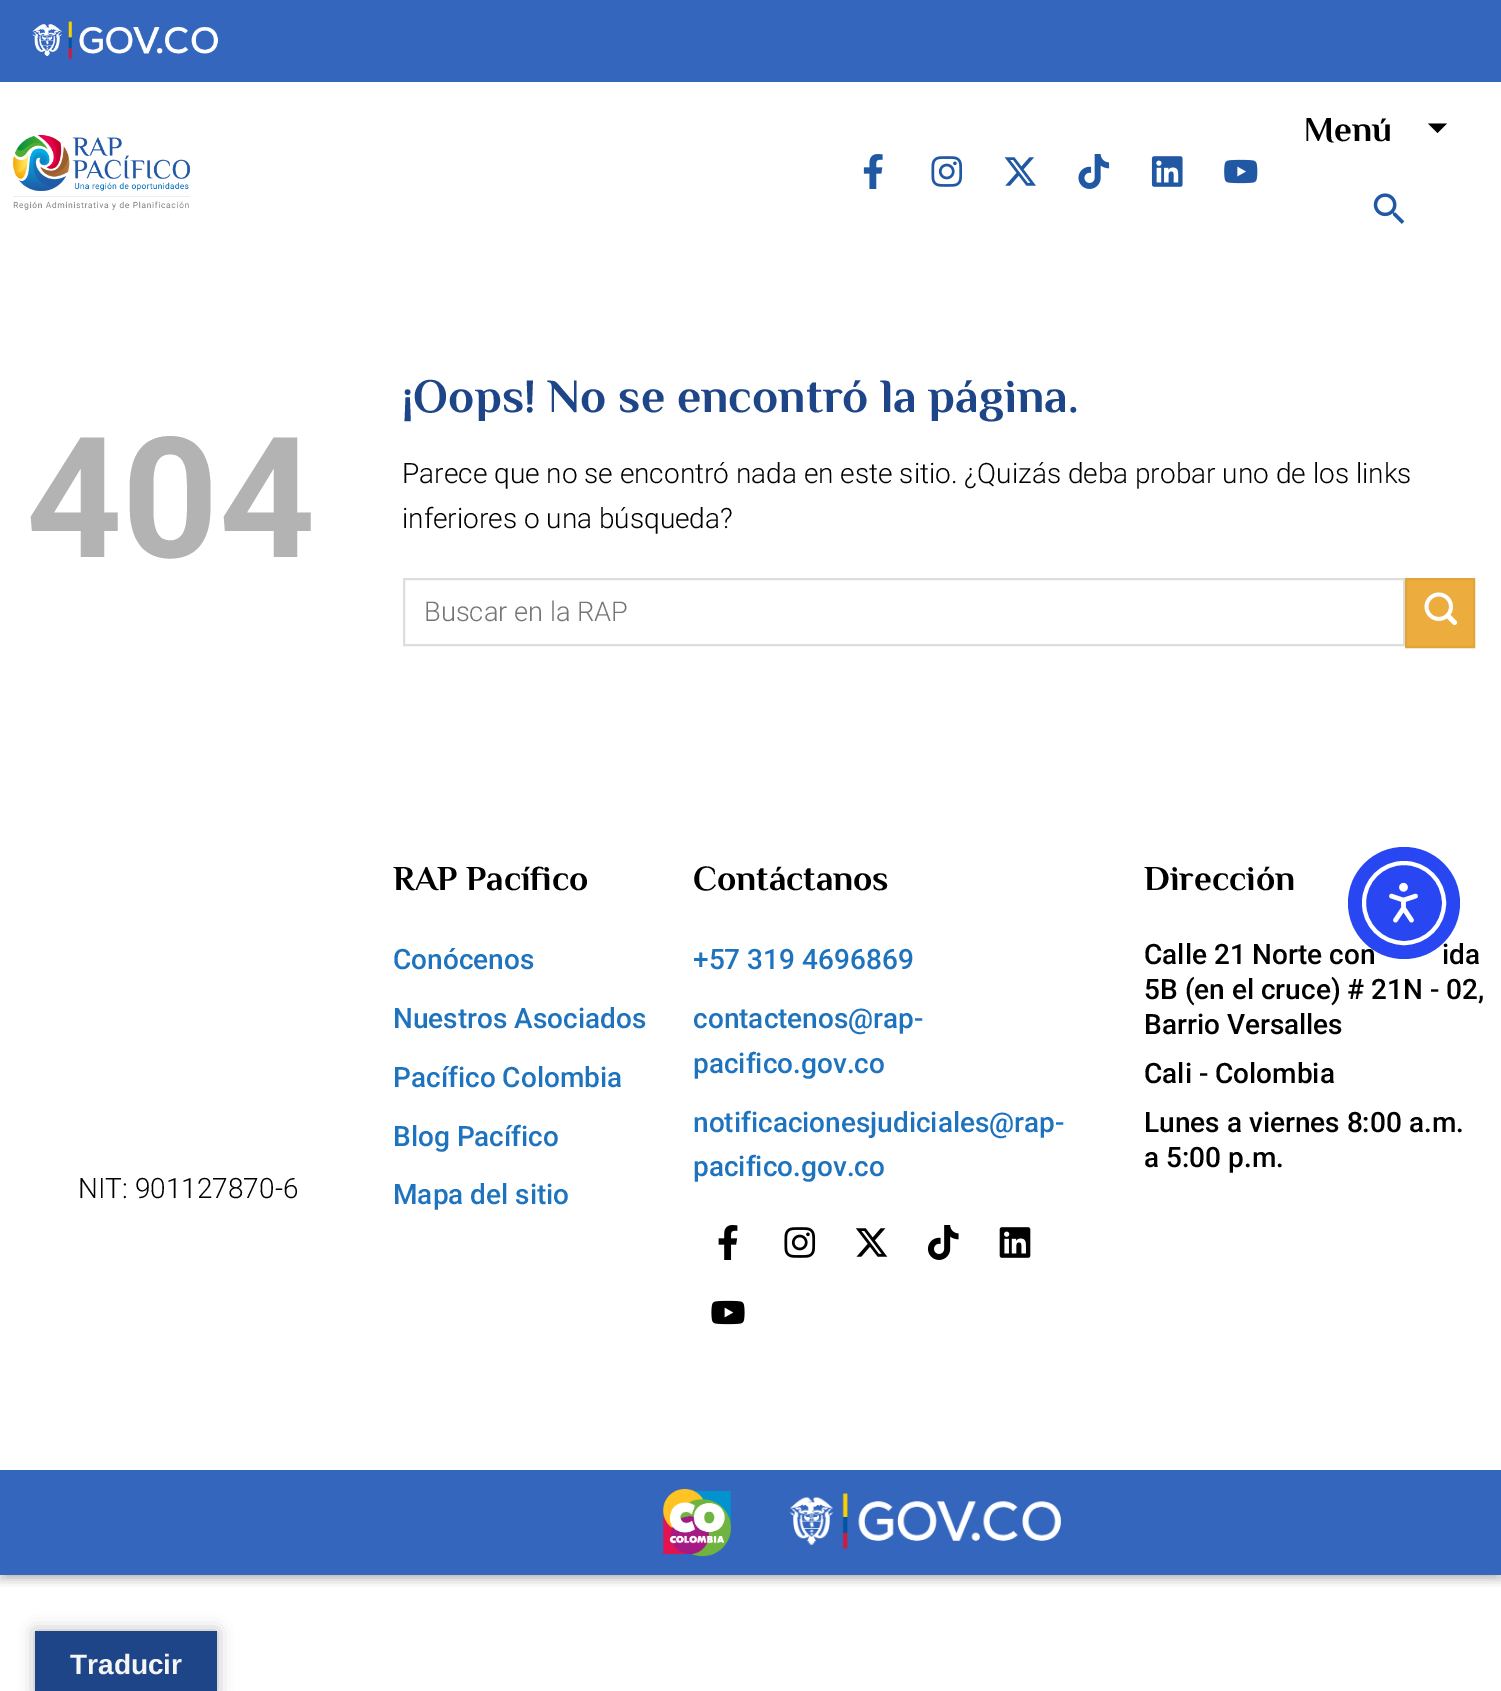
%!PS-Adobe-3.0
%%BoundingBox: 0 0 1501 1691
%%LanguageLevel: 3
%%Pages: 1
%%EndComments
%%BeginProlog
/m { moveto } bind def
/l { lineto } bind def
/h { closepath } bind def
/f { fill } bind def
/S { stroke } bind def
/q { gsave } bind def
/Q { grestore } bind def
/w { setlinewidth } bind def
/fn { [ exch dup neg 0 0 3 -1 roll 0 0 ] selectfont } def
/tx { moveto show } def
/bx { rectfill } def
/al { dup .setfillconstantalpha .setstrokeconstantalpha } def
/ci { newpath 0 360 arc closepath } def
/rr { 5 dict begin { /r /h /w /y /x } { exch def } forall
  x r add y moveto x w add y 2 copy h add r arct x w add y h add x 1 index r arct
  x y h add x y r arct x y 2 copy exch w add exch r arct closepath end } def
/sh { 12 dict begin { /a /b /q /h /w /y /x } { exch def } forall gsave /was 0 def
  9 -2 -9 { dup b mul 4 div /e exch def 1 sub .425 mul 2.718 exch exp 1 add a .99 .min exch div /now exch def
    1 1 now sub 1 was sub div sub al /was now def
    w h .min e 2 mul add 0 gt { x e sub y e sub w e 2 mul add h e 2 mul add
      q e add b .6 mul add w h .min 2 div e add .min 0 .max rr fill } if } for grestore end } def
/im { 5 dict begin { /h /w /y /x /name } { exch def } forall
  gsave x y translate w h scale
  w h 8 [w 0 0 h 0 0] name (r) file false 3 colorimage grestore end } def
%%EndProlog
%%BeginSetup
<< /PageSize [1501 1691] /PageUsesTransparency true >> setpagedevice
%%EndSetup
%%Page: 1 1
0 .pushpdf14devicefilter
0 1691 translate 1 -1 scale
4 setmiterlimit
1 setgray
0 0 1501 1691 bx
q
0 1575 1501 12 rectclip
0 setgray
0 5 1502 1575 0 5 0.23 sh
Q
q
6 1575 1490 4 rectclip
0 setgray
7 12 1488 1561 0 5 0.16 sh
Q
0.2 0.4 0.737 setrgbcolor
0 0 1501 82 bx
(image0.raw) 32 21 186 38 im
/Philosopher-Bold 35 fn
0 setgray
(Menú) 1304 141 tx
1428 123.5 m 1447 123.5 l 1437.5 133 l h f
(image1.raw) 1373 193 32 31 im
(image2.raw) 13 134 178 76 im
(image3.raw) 863 154 20 35 im
(image4.raw) 931 156 32 31 im
(image5.raw) 1004 157 32 29 im
(image6.raw) 1078 154 32 35 im
(image7.raw) 1151 156 32 31 im
(image8.raw) 1224 159 34 25 im
/Roboto-Bold 168 fn
0.702 setgray
(404) 26 557 tx
/Philosopher-Bold 47.6 fn
0.114 0.271 0.529 setrgbcolor
(¡Oops! No se encontró la página.) 402 412 tx
/Roboto-Light 28 fn
0 setgray
(Parece que no se encontró nada en este sitio. ¿Quizás deba probar uno de los links) 402 483 tx
(inferiores o una búsqueda?) 402 528 tx
0.867 setgray
2 w
404 579 1000 66 rectstroke
/Roboto-Light 27.25 fn
0.459 setgray
(Buscar en la RAP) 424 621 tx
0.925 0.678 0.243 setrgbcolor
1406 579 m 1474 579 l 1474 647 l 1406 647 l h q f Q
0.878 0.643 0.231 setrgbcolor
S
(image9.raw) 1424 592 34 33 im
/Roboto-Medium 28 fn
0 setgray
(Calle 21 Norte con) 1144 964 tx
(ida) 1442 964 tx
0.157 0.278 0.953 setrgbcolor
1404 903 56 ci f
1 setgray
4 w
1404 903 40 ci S
(image10.raw) 1389 882 29 41 im
/Philosopher-Bold 35 fn
0 setgray
(RAP Pacífico) 393 890 tx
/Roboto-Medium 28 fn
0.118 0.451 0.745 setrgbcolor
(Conócenos) 393 969 tx
(Nuestros Asociados) 393 1028 tx
(Pacífico Colombia) 393 1087 tx
(Blog Pacífico) 393 1146 tx
(Mapa del sitio) 393 1204 tx
/Philosopher-Bold 35 fn
0 setgray
(Contáctanos) 693 890 tx
/Roboto-Medium 28 fn
0.118 0.451 0.745 setrgbcolor
(+57 319 4696869) 693 969 tx
(contactenos@rap-) 693 1028 tx
(pacifico.gov.co) 693 1073 tx
(notificacionesjudiciales@rap-) 693 1132 tx
(pacifico.gov.co) 693 1176 tx
(image11.raw) 718 1225 20 35 im
(image12.raw) 784 1227 32 31 im
(image13.raw) 856 1228 32 29 im
(image14.raw) 927 1225 32 35 im
(image15.raw) 999 1227 32 31 im
(image16.raw) 711 1300 34 25 im
/Philosopher-Bold 35 fn
0 setgray
(Dirección) 1144 890 tx
/Roboto-Medium 28 fn
(5B \(en el cruce\) # 21N - 02,) 1144 999 tx
(Barrio Versalles) 1144 1034 tx
(Cali - Colombia) 1144 1083 tx
(Lunes a viernes 8:00 a.m.) 1144 1132 tx
(a 5:00 p.m.) 1144 1167 tx
/Roboto-Light 28 fn
(NIT: 901127870-6) 78 1198 tx
0.2 0.4 0.737 setrgbcolor
0 1470 1501 105 bx
(image17.raw) 663 1488 68 69 im
(image18.raw) 789 1493 273 57 im
0 setgray
35 1631 182 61 0 8 0.3 sh
0.114 0.271 0.529 setrgbcolor
35 1631 182 60 bx
/LiberationSans-Bold 28 fn
0.961 setgray
(Traducir) 70 1674 tx
.poppdf14devicefilter showpage
%%EOF
